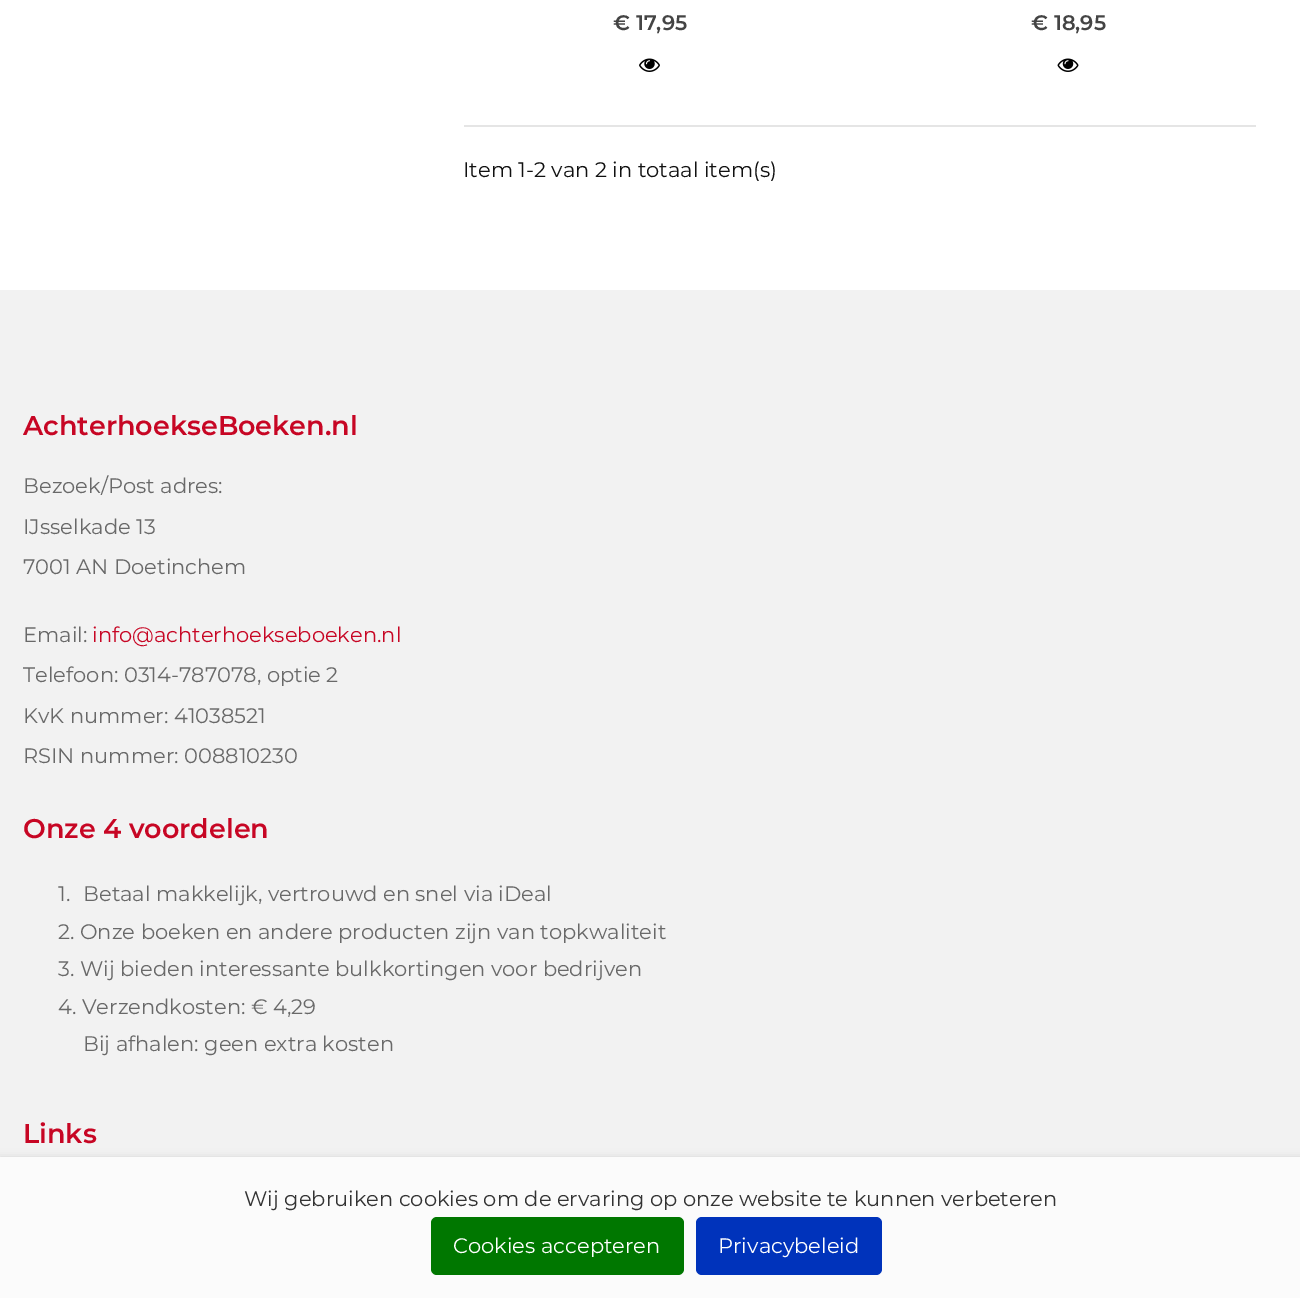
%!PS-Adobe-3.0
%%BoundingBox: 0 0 1300 1298
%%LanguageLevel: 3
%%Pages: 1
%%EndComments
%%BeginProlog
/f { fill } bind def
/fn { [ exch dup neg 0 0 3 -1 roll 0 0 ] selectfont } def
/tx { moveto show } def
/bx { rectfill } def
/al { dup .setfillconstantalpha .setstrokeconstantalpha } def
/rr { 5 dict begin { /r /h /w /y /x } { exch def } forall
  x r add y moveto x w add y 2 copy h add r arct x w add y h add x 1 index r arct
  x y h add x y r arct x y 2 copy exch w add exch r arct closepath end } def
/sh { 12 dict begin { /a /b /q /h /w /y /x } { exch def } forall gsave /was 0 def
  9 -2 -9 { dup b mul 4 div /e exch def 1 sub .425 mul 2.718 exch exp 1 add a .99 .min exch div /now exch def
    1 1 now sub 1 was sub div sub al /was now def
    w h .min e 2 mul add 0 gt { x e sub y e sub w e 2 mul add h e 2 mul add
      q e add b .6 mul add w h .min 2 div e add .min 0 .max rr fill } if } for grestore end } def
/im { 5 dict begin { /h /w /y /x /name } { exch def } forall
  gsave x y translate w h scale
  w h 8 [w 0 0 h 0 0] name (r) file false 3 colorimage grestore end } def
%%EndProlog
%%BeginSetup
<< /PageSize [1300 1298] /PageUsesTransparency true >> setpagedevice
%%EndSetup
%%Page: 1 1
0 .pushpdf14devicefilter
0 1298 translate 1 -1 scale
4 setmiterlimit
1 setgray
0 0 1300 1298 bx
/Montserrat-SemiBold 21 fn
0.267 setgray
(€ 17,95) 613 30 tx
(image0.raw) 639 58 21 14 im
(€ 18,95) 1031 30 tx
(image1.raw) 1057 58 22 14 im
0.898 setgray
464 125 792 2 bx
/Montserrat-Regular 21 fn
0.067 setgray
(Item 1-2 van 2 in totaal item\(s\)) 463 177 tx
0.949 setgray
0 290 1300 867 bx
/Montserrat-SemiBold 27 fn
0.78 0.024 0.141 setrgbcolor
(AchterhoekseBoeken.nl) 23 435 tx
/Montserrat-Regular 21 fn
0.412 setgray
(Bezoek/Post adres:) 23 493 tx
(IJsselkade 13) 23 534 tx
(7001 AN Doetinchem) 23 574 tx
(Email:) 23 642 tx
0.78 0.024 0.141 setrgbcolor
(info@achterhoekseboeken.nl) 92 642 tx
0.412 setgray
(Telefoon: 0314-787078, optie 2) 23 682 tx
(KvK nummer: 41038521) 23 723 tx
(RSIN nummer: 008810230) 23 763 tx
/Montserrat-SemiBold 27 fn
0.78 0.024 0.141 setrgbcolor
(Onze 4 voordelen) 23 838 tx
/Montserrat-Regular 21 fn
0.412 setgray
(1.) 58 901 tx
(Betaal makkelijk, vertrouwd en snel via iDeal) 83 901 tx
(2. Onze boeken en andere producten zijn van topkwaliteit) 58 939 tx
(3. Wij bieden interessante bulkkortingen voor bedrijven) 58 976 tx
(4. Verzendkosten: € 4,29) 58 1014 tx
(Bij afhalen: geen extra kosten) 83 1051 tx
/Montserrat-SemiBold 27 fn
0.78 0.024 0.141 setrgbcolor
(Links) 23 1143 tx
0.212 setgray
0 1157 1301 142 0 4 0.15 sh
0.984 setgray
0 1157 1300 141 bx
/Montserrat-Regular 21 fn
0.2 setgray
(Wij gebruiken cookies om de ervaring op onze website te kunnen verbeteren) 244 1206 tx
0 0.467 0 setrgbcolor
431 1217 253 58 6 rr f
1 setgray
(Cookies accepteren) 453 1253 tx
0 0.2 0.733 setrgbcolor
696 1217 186 58 6 rr f
1 setgray
(Privacybeleid) 718 1253 tx
.poppdf14devicefilter showpage
%%EOF
